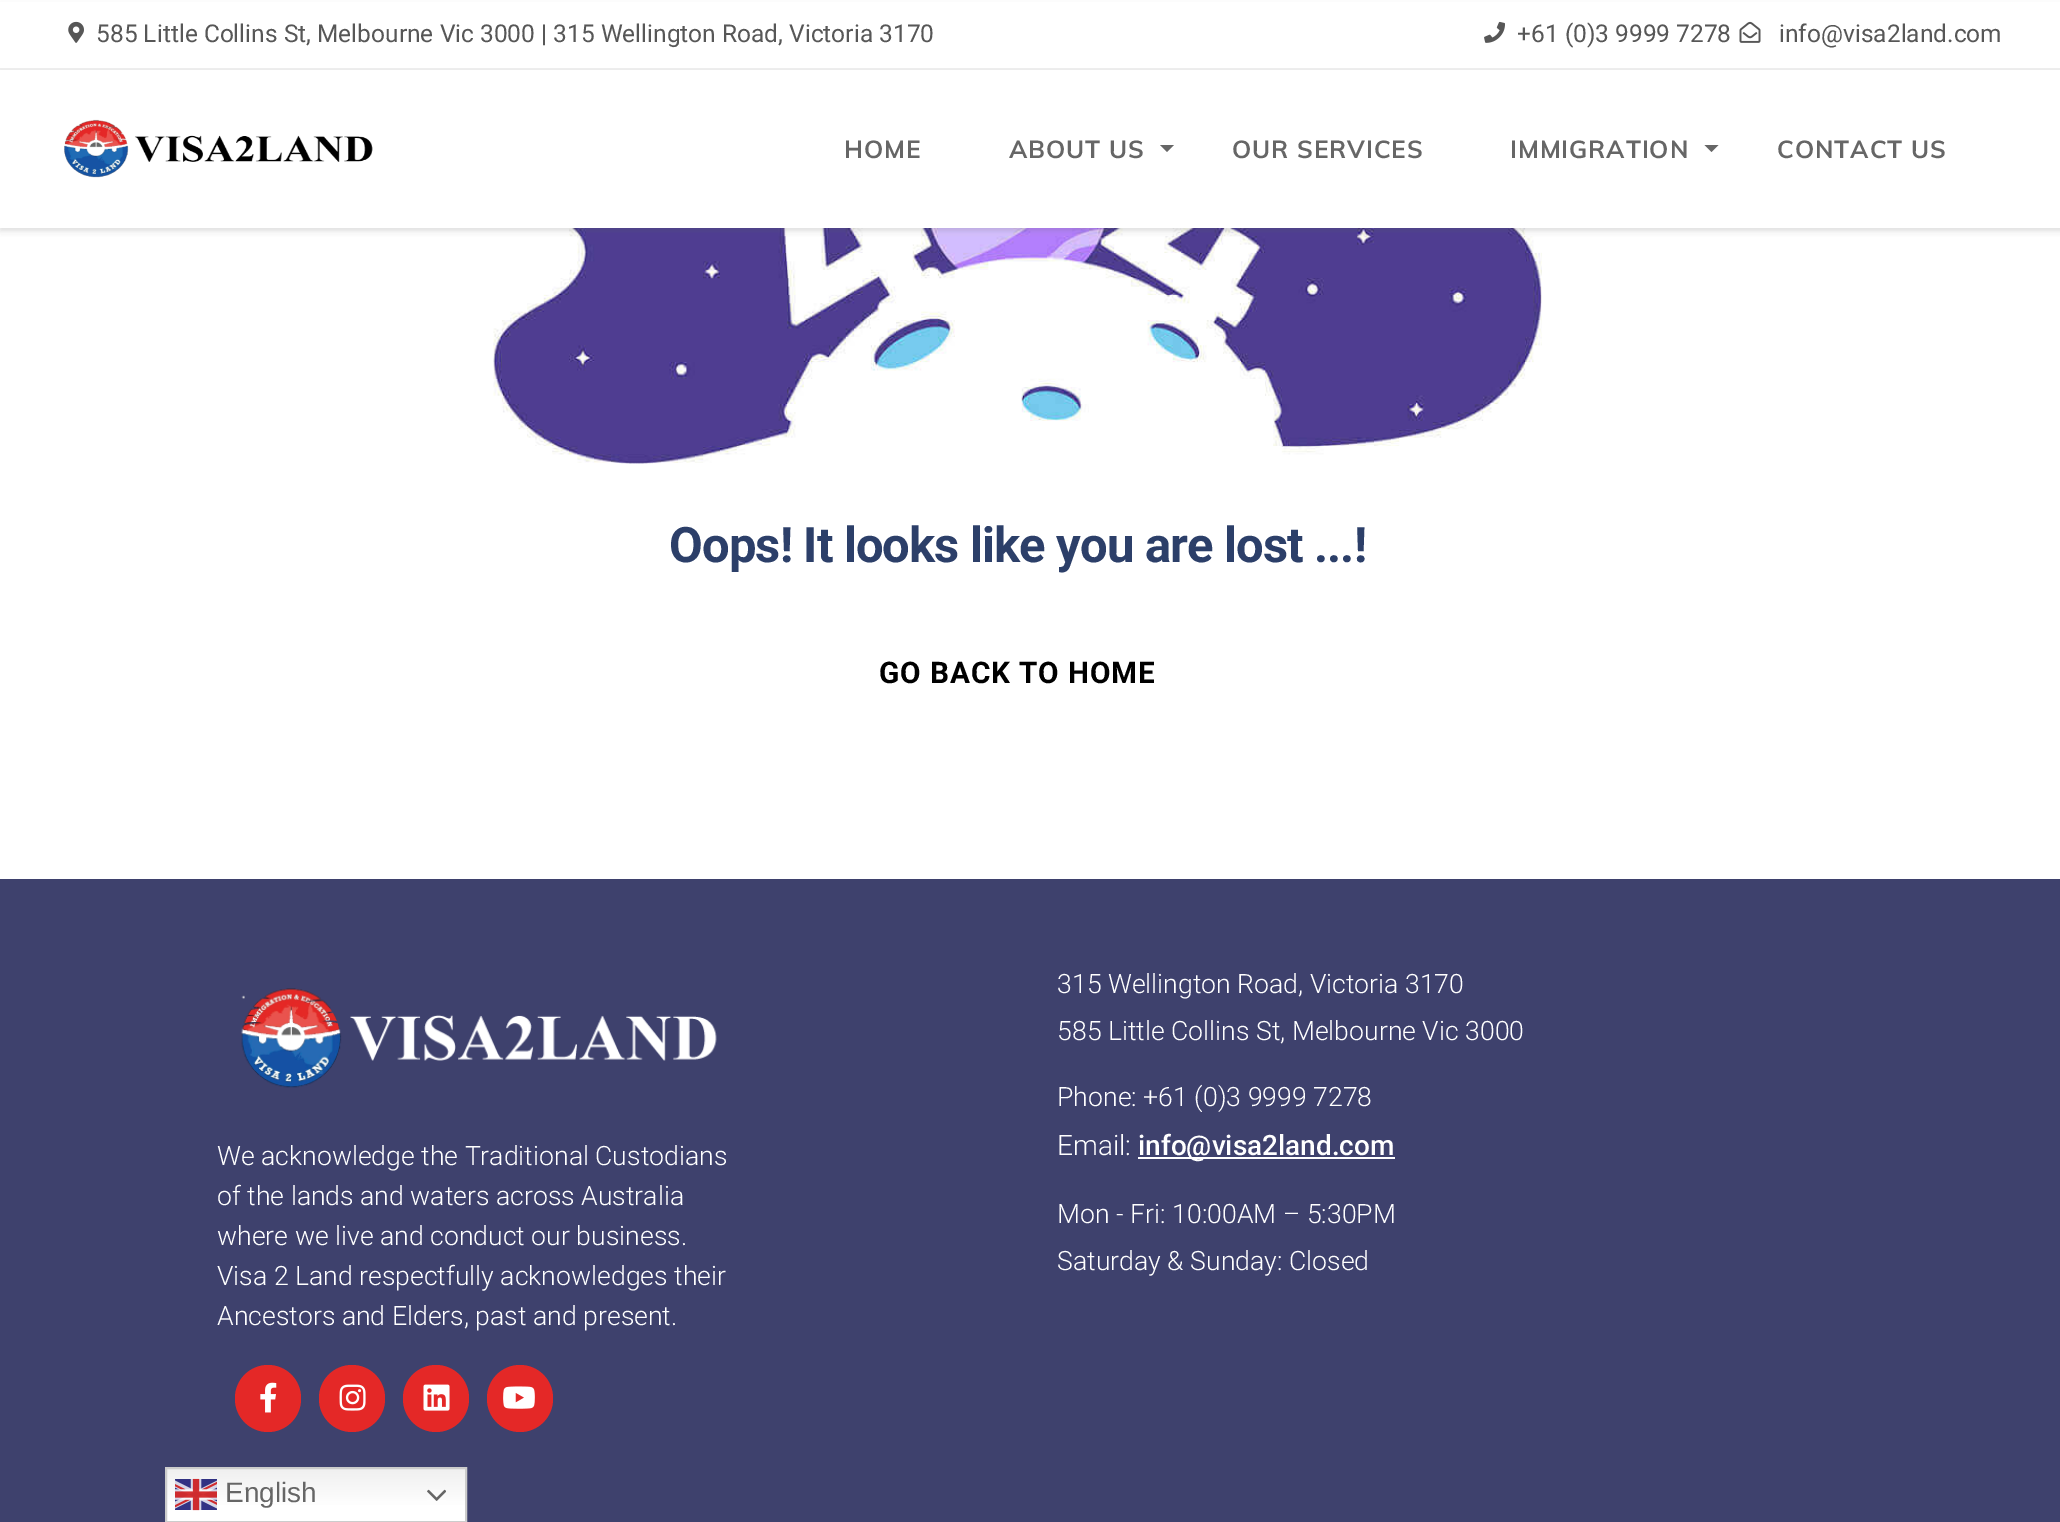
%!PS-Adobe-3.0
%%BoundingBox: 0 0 2060 1522
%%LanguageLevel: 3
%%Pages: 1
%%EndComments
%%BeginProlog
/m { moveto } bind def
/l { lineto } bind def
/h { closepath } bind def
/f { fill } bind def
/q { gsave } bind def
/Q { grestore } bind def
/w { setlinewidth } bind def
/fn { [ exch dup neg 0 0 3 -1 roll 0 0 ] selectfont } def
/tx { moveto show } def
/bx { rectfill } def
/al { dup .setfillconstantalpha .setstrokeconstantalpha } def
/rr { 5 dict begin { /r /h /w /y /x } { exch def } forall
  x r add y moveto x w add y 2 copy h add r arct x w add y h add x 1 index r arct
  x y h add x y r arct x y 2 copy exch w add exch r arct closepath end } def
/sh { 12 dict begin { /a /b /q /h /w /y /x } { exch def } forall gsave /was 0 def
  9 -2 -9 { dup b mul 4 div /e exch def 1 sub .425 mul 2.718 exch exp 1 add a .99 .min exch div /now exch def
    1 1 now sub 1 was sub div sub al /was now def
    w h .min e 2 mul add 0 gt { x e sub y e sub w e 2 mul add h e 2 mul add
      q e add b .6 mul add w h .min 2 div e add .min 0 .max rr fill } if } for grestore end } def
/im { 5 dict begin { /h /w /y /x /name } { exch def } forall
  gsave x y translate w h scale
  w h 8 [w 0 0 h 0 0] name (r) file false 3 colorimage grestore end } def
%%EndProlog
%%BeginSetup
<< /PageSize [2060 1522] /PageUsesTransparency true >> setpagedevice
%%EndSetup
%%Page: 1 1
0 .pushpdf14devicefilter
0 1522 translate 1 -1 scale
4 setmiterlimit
1 setgray
0 0 2060 1522 bx
(image4.raw) 493 228 1049 236 im
0.376 setgray
0 4 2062 227 0 2.5 0.1 sh
1 setgray
0 2 2060 66 bx
0.933 setgray
0 68 2060 2 bx
(image0.raw) 68 21 16 22 im
/Roboto-Regular 24.5 fn
0.341 setgray
(585 Little Collins St, Melbourne Vic 3000 | 315 Wellington Road, Victoria 3170) 96 42 tx
(image1.raw) 1484 21 21 22 im
(+61 \(0\)3 9999 7278) 1517 42 tx
(image2.raw) 1739 21 22 22 im
(info@visa2land.com) 1779 42 tx
0.376 setgray
0 74 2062 157 0 2.5 0.1 sh
1 setgray
0 70 2060 158 bx
(image3.raw) 64 119 309 59 im
/Muli-Bold 24.5 fn
0.4 setgray
844 158 m 0.9 0 (HOME) ashow
1009 158 m 0.9 0 (ABOUT US) ashow
1160 145 m 1174 145 l 1167 152 l h f
1232 158 m 0.9 0 (OUR SERVICES) ashow
1510 158 m 0.9 0 (IMMIGRATION) ashow
1704.5 145 m 1718.5 145 l 1711.5 152 l h f
1777 158 m 0.9 0 (CONTACT US) ashow
/Roboto-Bold 49 fn
0.173 0.247 0.412 setrgbcolor
669 562 m -0.9 0 (Oops! It looks like you are lost ...!) ashow
/Roboto-Bold 29.75 fn
0 setgray
879 683 m 0.9 0 (GO BACK TO HOME) ashow
0.243 0.255 0.427 setrgbcolor
0 879 2060 643 bx
(image5.raw) 241 988 476 100 im
/Roboto-Light 26.6 fn
1 setgray
(We acknowledge the Traditional Custodians) 217 1165 tx
(of the lands and waters across Australia) 217 1205 tx
(where we live and conduct our business.) 217 1245 tx
(Visa 2 Land respectfully acknowledges their) 217 1285 tx
(Ancestors and Elders, past and present.) 217 1325 tx
0.894 0.157 0.153 setrgbcolor
235 1365 66 67 33 rr f
(image6.raw) 260 1382 17 31 im
319 1365 66 67 33 rr f
(image7.raw) 339 1384 27 27 im
403 1365 66 67 33 rr f
(image8.raw) 423 1384 27 27 im
487 1365 66 67 33 rr f
(image9.raw) 503 1386 32 23 im
1 setgray
(315 Wellington Road, Victoria 3170) 1057 993 tx
(585 Little Collins St, Melbourne Vic 3000) 1057 1040 tx
(Phone: +61 \(0\)3 9999 7278) 1057 1106 tx
/Roboto-Light 28 fn
(Email:) 1057 1155 tx
1138 1157 257 2 bx
/Roboto-Medium 28 fn
(info@visa2land.com) 1138 1155 tx
/Roboto-Light 26.6 fn
(Mon - Fri: 10:00AM – 5:30PM) 1057 1223 tx
(Saturday & Sunday: Closed) 1057 1270 tx
q 167 1469 m 465 1469 l 465 1521 l 167 1521 l h clip newpath
<< /ShadingType 2 /ColorSpace /DeviceRGB /Coords [316 1467 316 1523] /Extend [true true] /Function << /FunctionType 3 /Domain [0 1] /Functions [<< /FunctionType 2 /Domain [0 1] /C0 [0.937 0.937 0.937] /C1 [1 1 1] /N 1 >> << /FunctionType 2 /Domain [0 1] /C0 [1 1 1] /C1 [1 1 1] /N 1 >>] /Bounds [0.7] /Encode [0 1 0 1] >> >> shfill Q
0.8 setgray
2 w
166 1468 300 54 rectstroke
(image10.raw) 175 1478 42 33 im
/LiberationSans-Regular 28 fn
0.4 setgray
(English) 225 1502 tx
(image11.raw) 427 1489 19 12 im
.poppdf14devicefilter showpage
%%EOF
